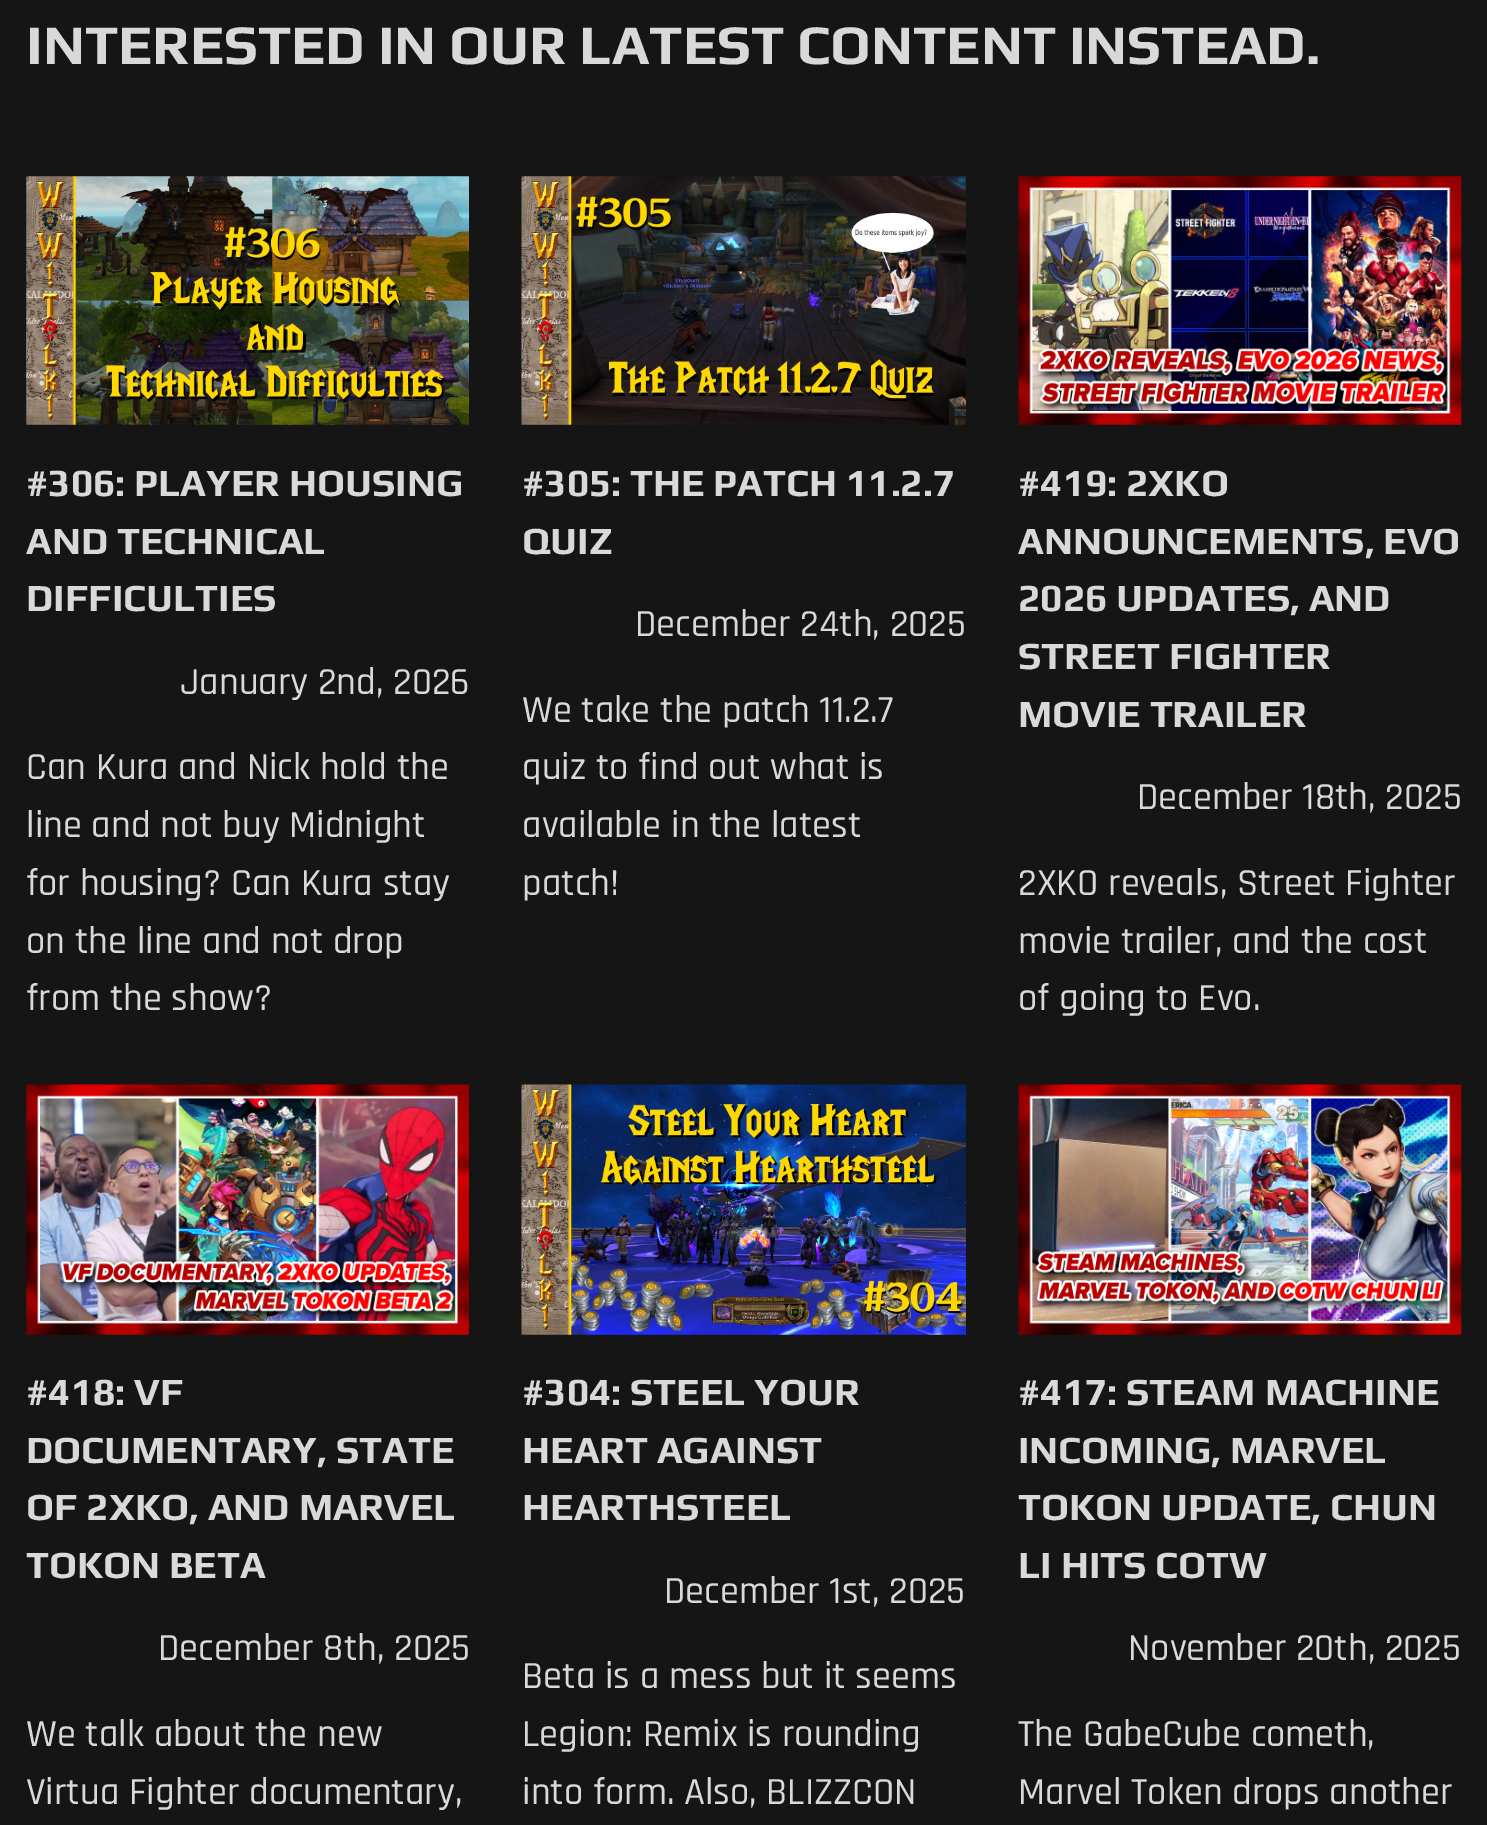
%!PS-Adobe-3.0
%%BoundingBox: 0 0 1487 1825
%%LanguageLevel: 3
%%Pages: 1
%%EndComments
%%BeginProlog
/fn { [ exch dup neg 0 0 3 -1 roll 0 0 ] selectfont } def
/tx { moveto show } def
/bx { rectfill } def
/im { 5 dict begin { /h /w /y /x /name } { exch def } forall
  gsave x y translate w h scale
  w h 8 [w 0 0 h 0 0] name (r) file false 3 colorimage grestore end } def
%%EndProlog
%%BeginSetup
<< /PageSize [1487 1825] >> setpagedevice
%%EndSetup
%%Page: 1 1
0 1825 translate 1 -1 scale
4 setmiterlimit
0.082 setgray
0 0 1487 1825 bx
/Play-Bold 56 fn
0.851 setgray
(INTERESTED IN OUR LATEST CONTENT INSTEAD.) 26 64 tx
(image0.raw) 26 176 443 249 im
/Play-Bold 38.5 fn
(#306: PLAYER HOUSING) 26 496 tx
(AND TECHNICAL) 26 554 tx
(DIFFICULTIES) 26 611 tx
/Rajdhani-Medium 38.5 fn
(January 2nd, 2026) 180 694 tx
(Can Kura and Nick hold the) 26 779 tx
(line and not buy Midnight) 26 837 tx
(for housing? Can Kura stay) 26 895 tx
(on the line and not drop) 26 953 tx
(from the show?) 26 1010 tx
(image1.raw) 521 176 445 249 im
/Play-Bold 38.5 fn
(#305: THE PATCH 11.2.7) 522 496 tx
(QUIZ) 522 554 tx
/Rajdhani-Medium 38.5 fn
(December 24th, 2025) 635 636 tx
(We take the patch 11.2.7) 522 722 tx
(quiz to find out what is) 522 779 tx
(available in the latest) 522 837 tx
(patch!) 522 895 tx
(image2.raw) 1018 176 444 249 im
/Play-Bold 38.5 fn
(#419: 2XKO) 1018 496 tx
(ANNOUNCEMENTS, EVO) 1018 554 tx
(2026 UPDATES, AND) 1018 611 tx
(STREET FIGHTER) 1018 669 tx
(MOVIE TRAILER) 1018 727 tx
/Rajdhani-Medium 38.5 fn
(December 18th, 2025) 1137 809 tx
(2XKO reveals, Street Fighter) 1018 895 tx
(movie trailer, and the cost) 1018 953 tx
(of going to Evo.) 1018 1010 tx
(image3.raw) 26 1084 443 251 im
/Play-Bold 38.5 fn
(#418: VF) 26 1405 tx
(DOCUMENTARY, STATE) 26 1463 tx
(OF 2XKO, AND MARVEL) 26 1520 tx
(TOKON BETA) 26 1578 tx
/Rajdhani-Medium 38.5 fn
(December 8th, 2025) 158 1660 tx
(We talk about the new) 26 1746 tx
(Virtua Fighter documentary,) 26 1804 tx
(image4.raw) 521 1084 445 251 im
/Play-Bold 38.5 fn
(#304: STEEL YOUR) 522 1405 tx
(HEART AGAINST) 522 1463 tx
(HEARTHSTEEL) 522 1520 tx
/Rajdhani-Medium 38.5 fn
(December 1st, 2025) 664 1603 tx
(Beta is a mess but it seems) 522 1688 tx
(Legion: Remix is rounding) 522 1746 tx
(into form. Also, BLIZZCON) 522 1804 tx
(image5.raw) 1018 1084 444 251 im
/Play-Bold 38.5 fn
(#417: STEAM MACHINE) 1018 1405 tx
(INCOMING, MARVEL) 1018 1463 tx
(TOKON UPDATE, CHUN) 1018 1520 tx
(LI HITS COTW) 1018 1578 tx
/Rajdhani-Medium 38.5 fn
(November 20th, 2025) 1128 1660 tx
(The GabeCube cometh,) 1018 1746 tx
(Marvel Token drops another) 1018 1804 tx
showpage
%%EOF
